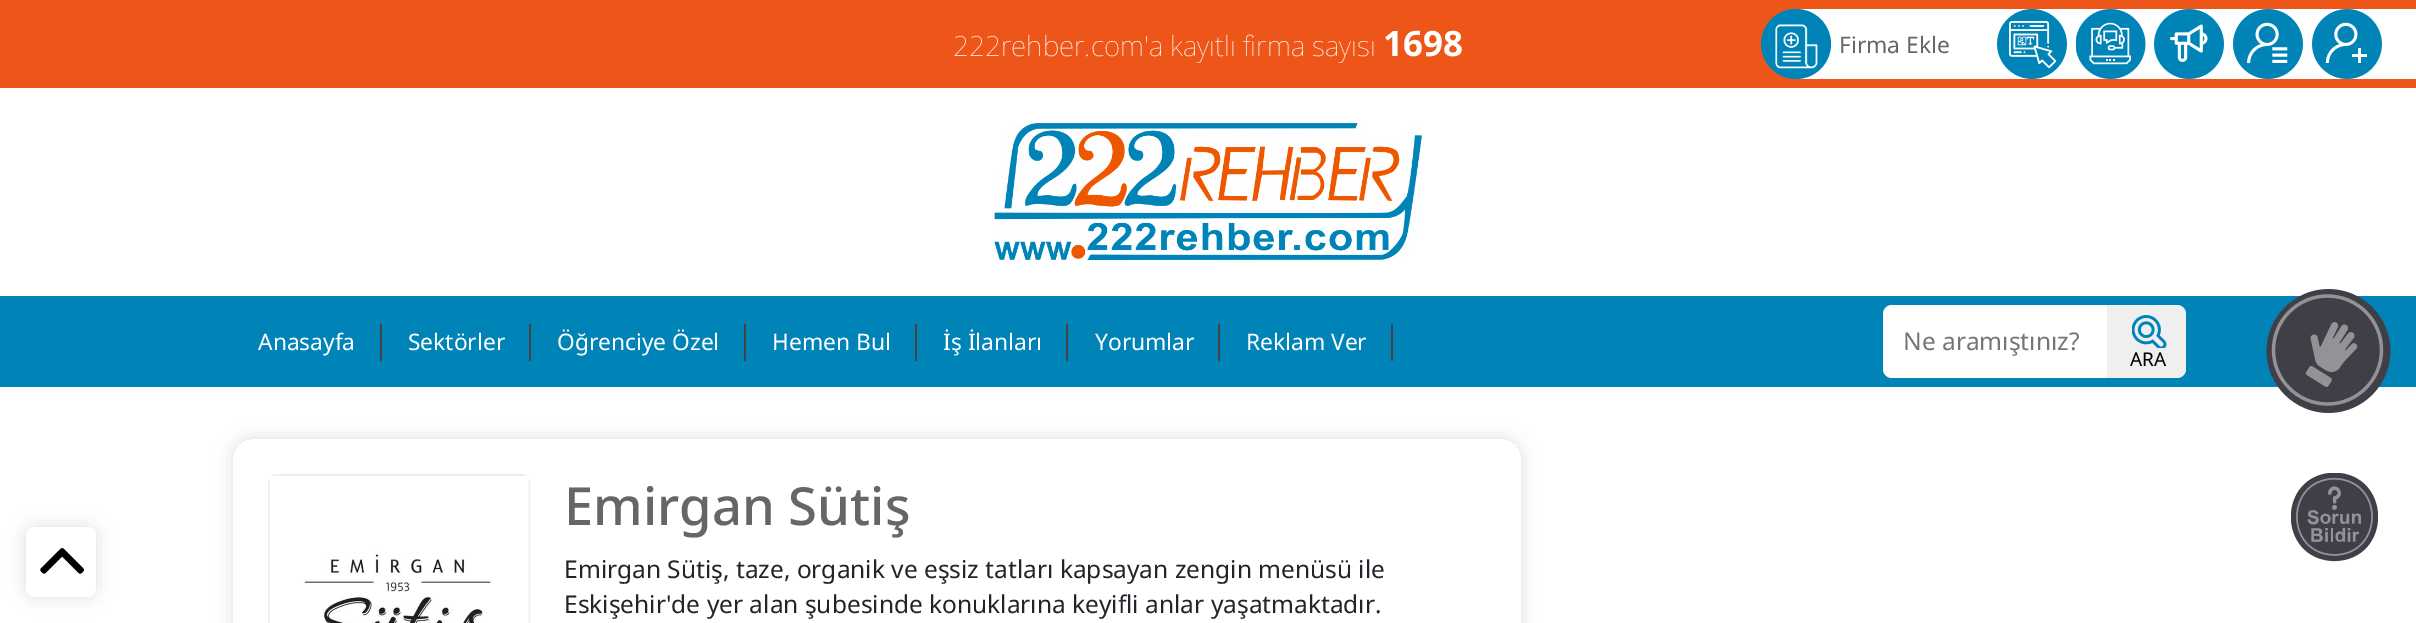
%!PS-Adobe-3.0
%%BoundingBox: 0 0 2416 623
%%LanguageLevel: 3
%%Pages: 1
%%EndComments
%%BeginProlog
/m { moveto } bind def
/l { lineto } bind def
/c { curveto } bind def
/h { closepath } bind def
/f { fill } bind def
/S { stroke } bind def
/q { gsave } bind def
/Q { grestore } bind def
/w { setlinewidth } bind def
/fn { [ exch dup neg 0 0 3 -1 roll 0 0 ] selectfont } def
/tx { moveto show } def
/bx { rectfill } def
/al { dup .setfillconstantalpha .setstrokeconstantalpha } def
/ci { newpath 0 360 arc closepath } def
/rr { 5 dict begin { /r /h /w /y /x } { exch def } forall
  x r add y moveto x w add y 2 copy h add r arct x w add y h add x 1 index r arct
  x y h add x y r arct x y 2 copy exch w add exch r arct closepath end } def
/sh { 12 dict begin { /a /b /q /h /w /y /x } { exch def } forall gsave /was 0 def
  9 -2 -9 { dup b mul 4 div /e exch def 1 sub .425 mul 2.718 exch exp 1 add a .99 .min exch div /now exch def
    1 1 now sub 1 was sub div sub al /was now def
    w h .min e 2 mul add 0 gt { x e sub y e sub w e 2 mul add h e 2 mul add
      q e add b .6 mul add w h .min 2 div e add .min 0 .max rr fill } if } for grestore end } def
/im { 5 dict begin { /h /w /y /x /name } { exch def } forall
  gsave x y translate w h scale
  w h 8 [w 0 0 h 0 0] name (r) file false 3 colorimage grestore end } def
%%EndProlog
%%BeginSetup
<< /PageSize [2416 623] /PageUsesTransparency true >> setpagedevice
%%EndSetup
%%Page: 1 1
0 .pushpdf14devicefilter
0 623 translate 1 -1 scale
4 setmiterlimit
1 setgray
0 0 2416 623 bx
0.929 0.337 0.094 setrgbcolor
0 0 2416 88 bx
/NotoSans-Thin 28 fn
1 setgray
(222rehber.com'a kayıtlı firma sayısı) 953 56 tx
/NotoSans-Bold 35 fn
(1698) 1383 56 tx
1796 9 620 70 bx
0 0.518 0.722 setrgbcolor
1796 44 35 ci f
(image0.raw) 1775 24 43 45 im
/NotoSans-Regular 22.75 fn
0.4 setgray
(Firma Ekle) 1839 53 tx
(image1.raw) 1997 9 70 70 im
(image2.raw) 2076 9 70 70 im
(image3.raw) 2154 9 70 70 im
(image4.raw) 2233 9 70 70 im
(image5.raw) 2312 9 70 70 im
(image6.raw) 994 123 428 138 im
0 0.518 0.722 setrgbcolor
0 296 2416 91 bx
1 setgray
(Anasayfa) 258 350 tx
0.267 setgray
380 324 2 37 bx
1 setgray
(Sektörler) 408 350 tx
0.267 setgray
529 324 2 37 bx
1 setgray
(Öğrenciye Özel) 557 350 tx
0.267 setgray
744 324 2 37 bx
1 setgray
(Hemen Bul) 772 350 tx
0.267 setgray
915 324 2 37 bx
1 setgray
(İş İlanları) 943 350 tx
0.267 setgray
1066 324 2 37 bx
1 setgray
(Yorumlar) 1095 350 tx
0.267 setgray
1218 324 2 37 bx
1 setgray
(Reklam Ver) 1246 350 tx
0.267 setgray
1391 324 2 37 bx
1 setgray
1892 305 m 2107 305 l 2107 378 l 1892 378 l 1887 378 1883 374 1883 369 c 1883 314 l 1883 309 1887 305 1892 305 c h f
/NotoSans-Regular 24.5 fn
0.459 setgray
(Ne aramıştınız?) 1903 350 tx
0.937 setgray
2107 305 m 2172 305 l 2177 305 2181 309 2181 314 c 2181 369 l 2181 374 2177 378 2172 378 c 2107 378 l h f
2112 305 74 73 9 rr f
(image7.raw) 2132 315 35 33 im
/NotoSans-Regular 19 fn
0 setgray
(ARA) 2130 366 tx
(image8.raw) 2266 289 125 124 im
0.867 setgray
26 527 70 70 9 9 1 sh
1 setgray
26 527 70 70 9 rr f
(image9.raw) 40 548 44 26 im
q
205 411 m 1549 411 l 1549 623 l 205 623 l h 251 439 m 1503 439 l 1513 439 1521 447 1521 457 c 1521 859 l 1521 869 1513 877 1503 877 c 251 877 l 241 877 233 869 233 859 c 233 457 l 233 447 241 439 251 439 c h eoclip newpath
0.867 setgray
233 439 1288 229 18 9 1 sh
Q
0.933 setgray
2 w
269 475 260 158 8 rr S
(image10.raw) 269 476 260 147 im
/NotoSans-Medium 52.5 fn
0.4 setgray
(Emirgan Sütiş) 564 525 tx
/NotoSans-Regular 24.5 fn
0.129 0.145 0.161 setrgbcolor
(Emirgan Sütiş, taze, organik ve eşsiz tatları kapsayan zengin menüsü ile) 564 578 tx
(Eskişehir'de yer alan şubesinde konuklarına keyifli anlar yaşatmaktadır.) 564 613 tx
(image11.raw) 2291 473 87 89 im
.poppdf14devicefilter showpage
%%EOF
